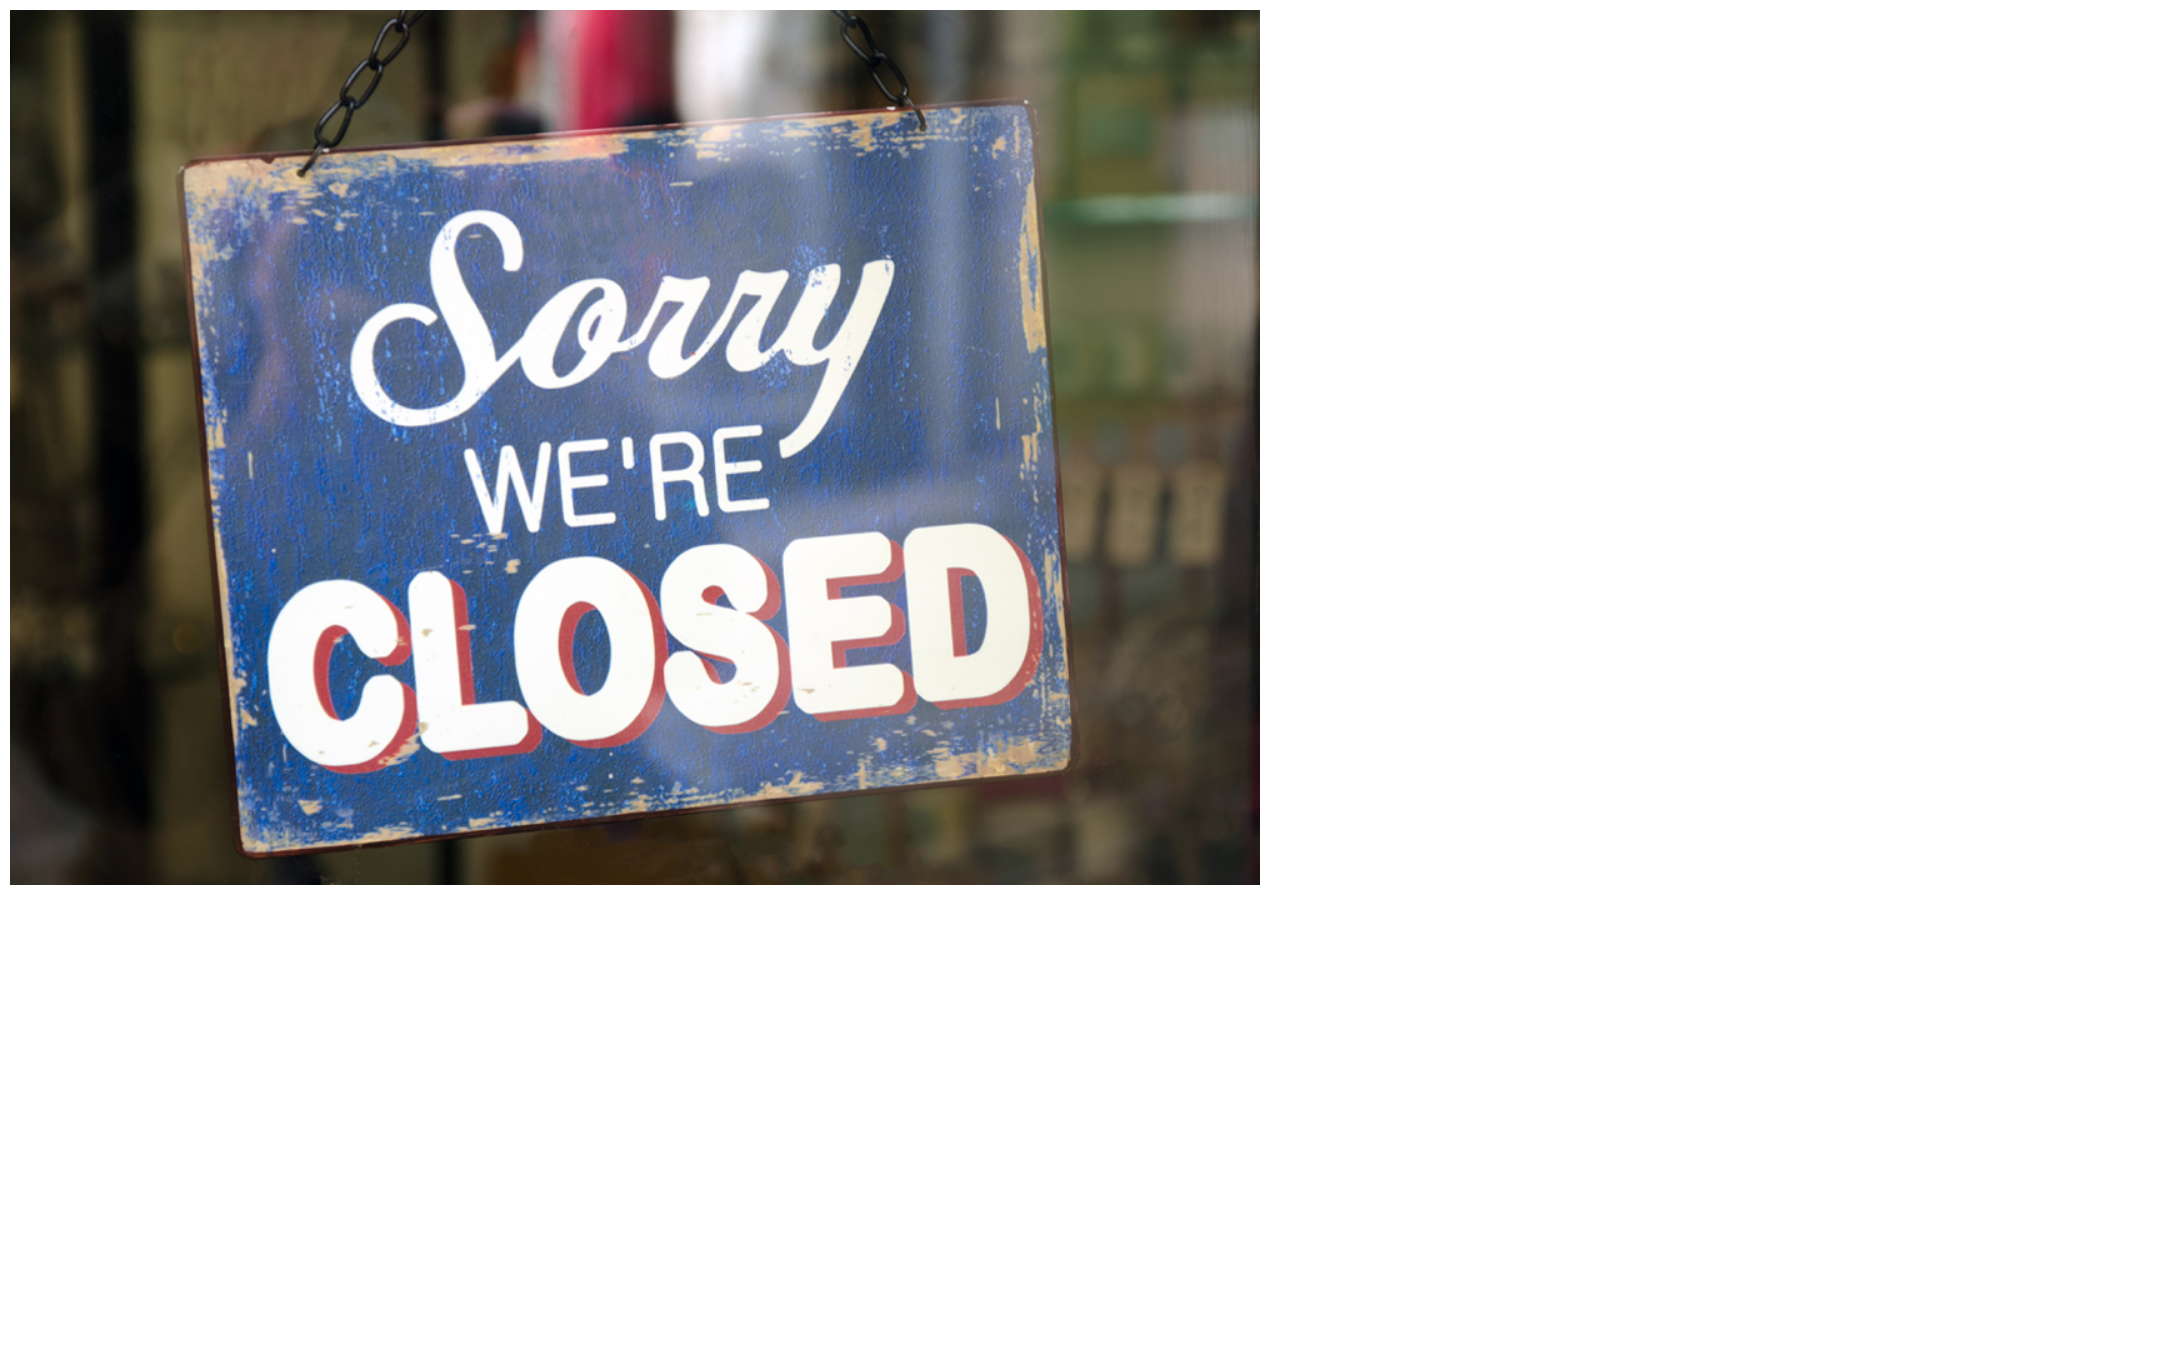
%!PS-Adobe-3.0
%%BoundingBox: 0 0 2168 1357
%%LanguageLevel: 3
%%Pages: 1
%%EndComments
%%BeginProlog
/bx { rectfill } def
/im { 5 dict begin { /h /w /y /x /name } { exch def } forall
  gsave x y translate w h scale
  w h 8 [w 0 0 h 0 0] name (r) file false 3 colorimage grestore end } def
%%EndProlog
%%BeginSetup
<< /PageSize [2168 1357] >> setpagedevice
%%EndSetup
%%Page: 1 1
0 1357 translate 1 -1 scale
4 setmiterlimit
1 setgray
0 0 2168 1357 bx
(image0.raw) 10 10 1250 875 im
showpage
%%EOF
